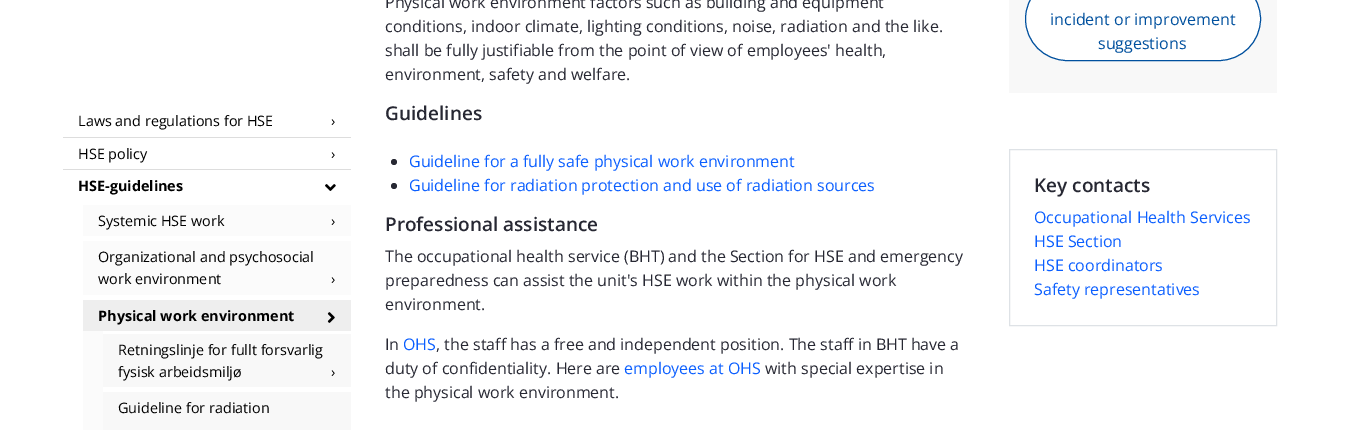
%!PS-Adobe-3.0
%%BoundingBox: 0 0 1349 430
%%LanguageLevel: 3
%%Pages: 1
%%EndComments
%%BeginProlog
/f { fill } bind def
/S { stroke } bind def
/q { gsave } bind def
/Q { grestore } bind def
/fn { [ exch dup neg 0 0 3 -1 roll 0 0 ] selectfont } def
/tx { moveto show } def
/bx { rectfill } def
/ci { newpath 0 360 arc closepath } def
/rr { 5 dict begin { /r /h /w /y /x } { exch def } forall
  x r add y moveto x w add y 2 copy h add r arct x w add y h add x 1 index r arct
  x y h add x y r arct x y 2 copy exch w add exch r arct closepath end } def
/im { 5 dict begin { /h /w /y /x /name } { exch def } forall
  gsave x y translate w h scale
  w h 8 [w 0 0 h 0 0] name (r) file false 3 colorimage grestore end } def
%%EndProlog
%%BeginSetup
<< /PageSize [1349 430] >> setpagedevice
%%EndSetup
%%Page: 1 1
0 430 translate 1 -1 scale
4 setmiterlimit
1 setgray
0 0 1349 430 bx
/OpenSans-Regular 14.4 fn
0 setgray
(Laws and regulations for HSE) 78 126 tx
(›) 331 126 tx
0.867 setgray
63 137 288 1 bx
0 setgray
(HSE policy) 78 159 tx
(›) 331 159 tx
0.867 setgray
63 169 288 1 bx
/OpenSans-Bold 14.4 fn
0 setgray
(HSE-guidelines) 78 191 tx
(image0.raw) 325 184 11 7 im
0.984 setgray
83 205 268 225 bx
1 setgray
83 236 268 5 bx
/OpenSans-Regular 14.4 fn
0 setgray
(Systemic HSE work) 98 226 tx
(›) 331 226 tx
1 setgray
83 295 268 5 bx
0 setgray
(Organizational and psychosocial) 98 262 tx
(work environment) 98 284 tx
(›) 331 284 tx
0.933 setgray
83 300 268 31 bx
/OpenSans-Bold 14.4 fn
0 setgray
(Physical work environment) 98 321 tx
(image1.raw) 327 312 8 11 im
0.973 setgray
103 334 248 96 bx
1 setgray
103 331 248 3 bx
103 387 248 5 bx
/OpenSans-Regular 14.4 fn
0 setgray
(Retningslinje for fullt forsvarlig) 118 355 tx
(fysisk arbeidsmiljø) 118 377 tx
(›) 331 377 tx
(Guideline for radiation) 118 413 tx
/OpenSans-Regular 16 fn
0.153 0.157 0.2 setrgbcolor
(Physical work environment factors such as building and equipment) 385 8 tx
(conditions, indoor climate, lighting conditions, noise, radiation and the like.) 385 32 tx
(shall be fully justifiable from the point of view of employees' health,) 385 56 tx
(environment, safety and welfare.) 385 80 tx
/OpenSans-SemiBold 19 fn
(Guidelines) 385 120 tx
394 162 3 ci f
/OpenSans-Regular 16 fn
0.043 0.373 1 setrgbcolor
(Guideline for a fully safe physical work environment) 409 167 tx
0.153 0.157 0.2 setrgbcolor
394 186 3 ci f
0.043 0.373 1 setrgbcolor
(Guideline for radiation protection and use of radiation sources) 409 191 tx
/OpenSans-SemiBold 19 fn
0.153 0.157 0.2 setrgbcolor
(Professional assistance) 385 231 tx
/OpenSans-Regular 16 fn
(The occupational health service \(BHT\) and the Section for HSE and emergency) 385 262 tx
(preparedness can assist the unit's HSE work within the physical work) 385 286 tx
(environment.) 385 310 tx
(In) 385 350 tx
0.043 0.373 1 setrgbcolor
(OHS) 403 350 tx
0.153 0.157 0.2 setrgbcolor
(, the staff has a free and independent position. The staff in BHT have a) 436 350 tx
(duty of confidentiality. Here are) 385 374 tx
0.043 0.373 1 setrgbcolor
(employees at OHS) 624 374 tx
0.153 0.157 0.2 setrgbcolor
(with special expertise in) 765 374 tx
(the physical work environment.) 385 398 tx
0.973 setgray
1009 0 268 93 bx
1 setgray
1025.5 -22.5 235 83 41.5 rr q f Q
0 0.314 0.62 setrgbcolor
S
(incident or improvement) 1050 25 tx
(suggestions) 1098 49 tx
0.871 0.886 0.902 setrgbcolor
1009.5 149.5 267 176 rectstroke
/OpenSans-SemiBold 19 fn
0.153 0.157 0.2 setrgbcolor
(Key contacts) 1034 192 tx
/OpenSans-Regular 16 fn
0.043 0.373 1 setrgbcolor
(Occupational Health Services) 1034 223 tx
(HSE Section) 1034 247 tx
(HSE coordinators) 1034 271 tx
(Safety representatives) 1034 295 tx
showpage
%%EOF
